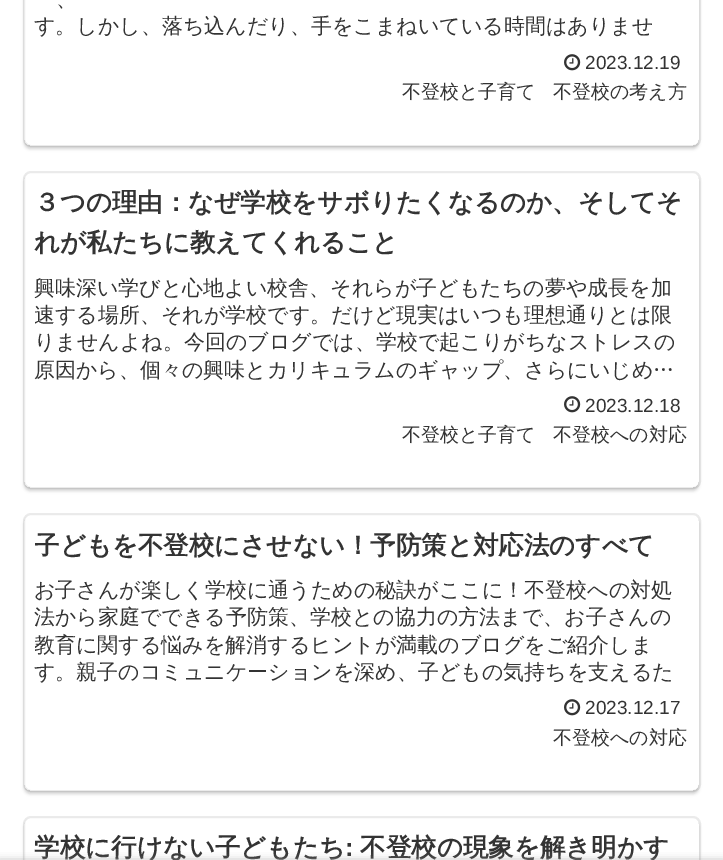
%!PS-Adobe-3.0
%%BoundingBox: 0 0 723 860
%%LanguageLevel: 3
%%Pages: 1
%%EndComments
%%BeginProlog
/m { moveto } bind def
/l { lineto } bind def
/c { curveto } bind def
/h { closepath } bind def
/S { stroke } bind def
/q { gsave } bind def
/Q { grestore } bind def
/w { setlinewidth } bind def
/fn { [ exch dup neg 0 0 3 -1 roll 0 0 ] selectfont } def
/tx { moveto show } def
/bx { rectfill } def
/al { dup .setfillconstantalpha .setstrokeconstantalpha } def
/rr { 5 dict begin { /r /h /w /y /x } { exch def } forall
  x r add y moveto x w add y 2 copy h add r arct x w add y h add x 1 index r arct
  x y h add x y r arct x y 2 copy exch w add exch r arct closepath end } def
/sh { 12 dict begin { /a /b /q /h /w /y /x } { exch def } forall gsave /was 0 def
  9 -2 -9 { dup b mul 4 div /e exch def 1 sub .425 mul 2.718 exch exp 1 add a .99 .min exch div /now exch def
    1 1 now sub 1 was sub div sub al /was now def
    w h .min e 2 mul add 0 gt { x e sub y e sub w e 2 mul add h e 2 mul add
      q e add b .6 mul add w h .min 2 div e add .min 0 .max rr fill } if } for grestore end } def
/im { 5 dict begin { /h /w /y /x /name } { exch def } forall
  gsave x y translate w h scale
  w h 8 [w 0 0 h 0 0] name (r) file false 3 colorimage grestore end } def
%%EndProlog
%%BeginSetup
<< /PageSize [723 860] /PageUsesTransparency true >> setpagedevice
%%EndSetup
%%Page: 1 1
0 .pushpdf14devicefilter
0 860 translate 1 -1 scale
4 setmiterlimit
1 setgray
0 0 723 860 bx
0.922 setgray
2 w
24 -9 676 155 7 rr S
q
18 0 m 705 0 l 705 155 l 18 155 l h 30 -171 m 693 -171 l 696.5 -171 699 -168.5 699 -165 c 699 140 l 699 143.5 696.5 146 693 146 c 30 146 l 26.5 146 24 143.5 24 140 c 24 -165 l 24 -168.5 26.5 -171 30 -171 c h eoclip newpath
0 setgray
24 -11 675 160 6 1.5 0.16 sh
Q
/WenQuanYiZenHei-Medium 21 fn
0.2 setgray
(、) 56 6 tx
(す。しかし、落ち込んだり、手をこまねいている時間はありませ) 34 33 tx
(image0.raw) 564 54 17 17 im
/LiberationSans-Regular 19 fn
(2023.12.19) 585 69 tx
/WenQuanYiZenHei-Medium 19 fn
(不登校と子育て) 402 98 tx
(不登校の考え方) 553 98 tx
0.922 setgray
24 172 676 316 7 rr S
q
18 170 m 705 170 l 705 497 l 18 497 l h 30 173 m 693 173 l 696.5 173 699 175.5 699 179 c 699 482 l 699 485.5 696.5 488 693 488 c 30 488 l 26.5 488 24 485.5 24 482 c 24 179 l 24 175.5 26.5 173 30 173 c h eoclip newpath
0 setgray
24 176 675 315 6 1.5 0.16 sh
Q
/WenQuanYiZenHei-Bold 25.5 fn
0.2 setgray
(３つの理由：なぜ学校をサボりたくなるのか、そしてそ) 34 211 tx
(れが私たちに教えてくれること) 34 251 tx
/WenQuanYiZenHei-Medium 21 fn
(興味深い学びと心地よい校舎、それらが子どもたちの夢や成長を加) 34 295 tx
q
35 275 654 108 rectclip
(速する場所、それが学校です。だけど現実はいつも理想通りとは限) 34 322 tx
Q
(りませんよね。今回のブログでは、学校で起こりがちなストレスの) 34 349 tx
(原因から、個々の興味とカリキュラムのギャップ、さらにいじめ…) 34 377 tx
(image0.raw) 564 396 17 17 im
/LiberationSans-Regular 19 fn
(2023.12.18) 585 412 tx
/WenQuanYiZenHei-Medium 19 fn
(不登校と子育て) 402 441 tx
(不登校への対応) 553 441 tx
0.922 setgray
24 514 676 277 7 rr S
q
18 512 m 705 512 l 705 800 l 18 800 l h 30 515 m 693 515 l 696.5 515 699 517.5 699 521 c 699 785 l 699 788.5 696.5 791 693 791 c 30 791 l 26.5 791 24 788.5 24 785 c 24 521 l 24 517.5 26.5 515 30 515 c h eoclip newpath
0 setgray
24 518 675 276 6 1.5 0.16 sh
Q
q
35 525 654 41 rectclip
/WenQuanYiZenHei-Bold 25.5 fn
0.2 setgray
(子どもを不登校にさせない！予防策と対応法のすべて) 34 554 tx
Q
/WenQuanYiZenHei-Medium 21 fn
0.2 setgray
(お子さんが楽しく学校に通うための秘訣がここに！不登校への対処) 34 597 tx
(法から家庭でできる予防策、学校との協力の方法まで、お子さんの) 34 624 tx
q
35 576 654 110 rectclip
(教育に関する悩みを解消するヒントが満載のブログをご紹介しま) 34 652 tx
Q
(す。親子のコミュニケーションを深め、子どもの気持ちを支えるた) 34 679 tx
(image0.raw) 564 699 17 17 im
/LiberationSans-Regular 19 fn
(2023.12.17) 585 714 tx
/WenQuanYiZenHei-Medium 19 fn
(不登校への対応) 553 744 tx
0.922 setgray
24 817 676 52 7 rr S
q
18 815 m 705 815 l 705 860 l 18 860 l h 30 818 m 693 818 l 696.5 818 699 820.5 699 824 c 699 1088 l 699 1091.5 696.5 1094 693 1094 c 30 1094 l 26.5 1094 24 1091.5 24 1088 c 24 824 l 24 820.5 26.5 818 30 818 c h eoclip newpath
0 setgray
24 821 675 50 6 1.5 0.16 sh
Q
/WenQuanYiZenHei-Bold 25.5 fn
0.2 setgray
(学校に行けない子どもたち) 34 856 tx
/LiberationSans-Bold 25.5 fn
(:) 345 856 tx
/WenQuanYiZenHei-Bold 25.5 fn
(不登校の現象を解き明かす) 360 856 tx
0.663 setgray
0 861 723 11 0 4 1 sh
.poppdf14devicefilter showpage
%%EOF
